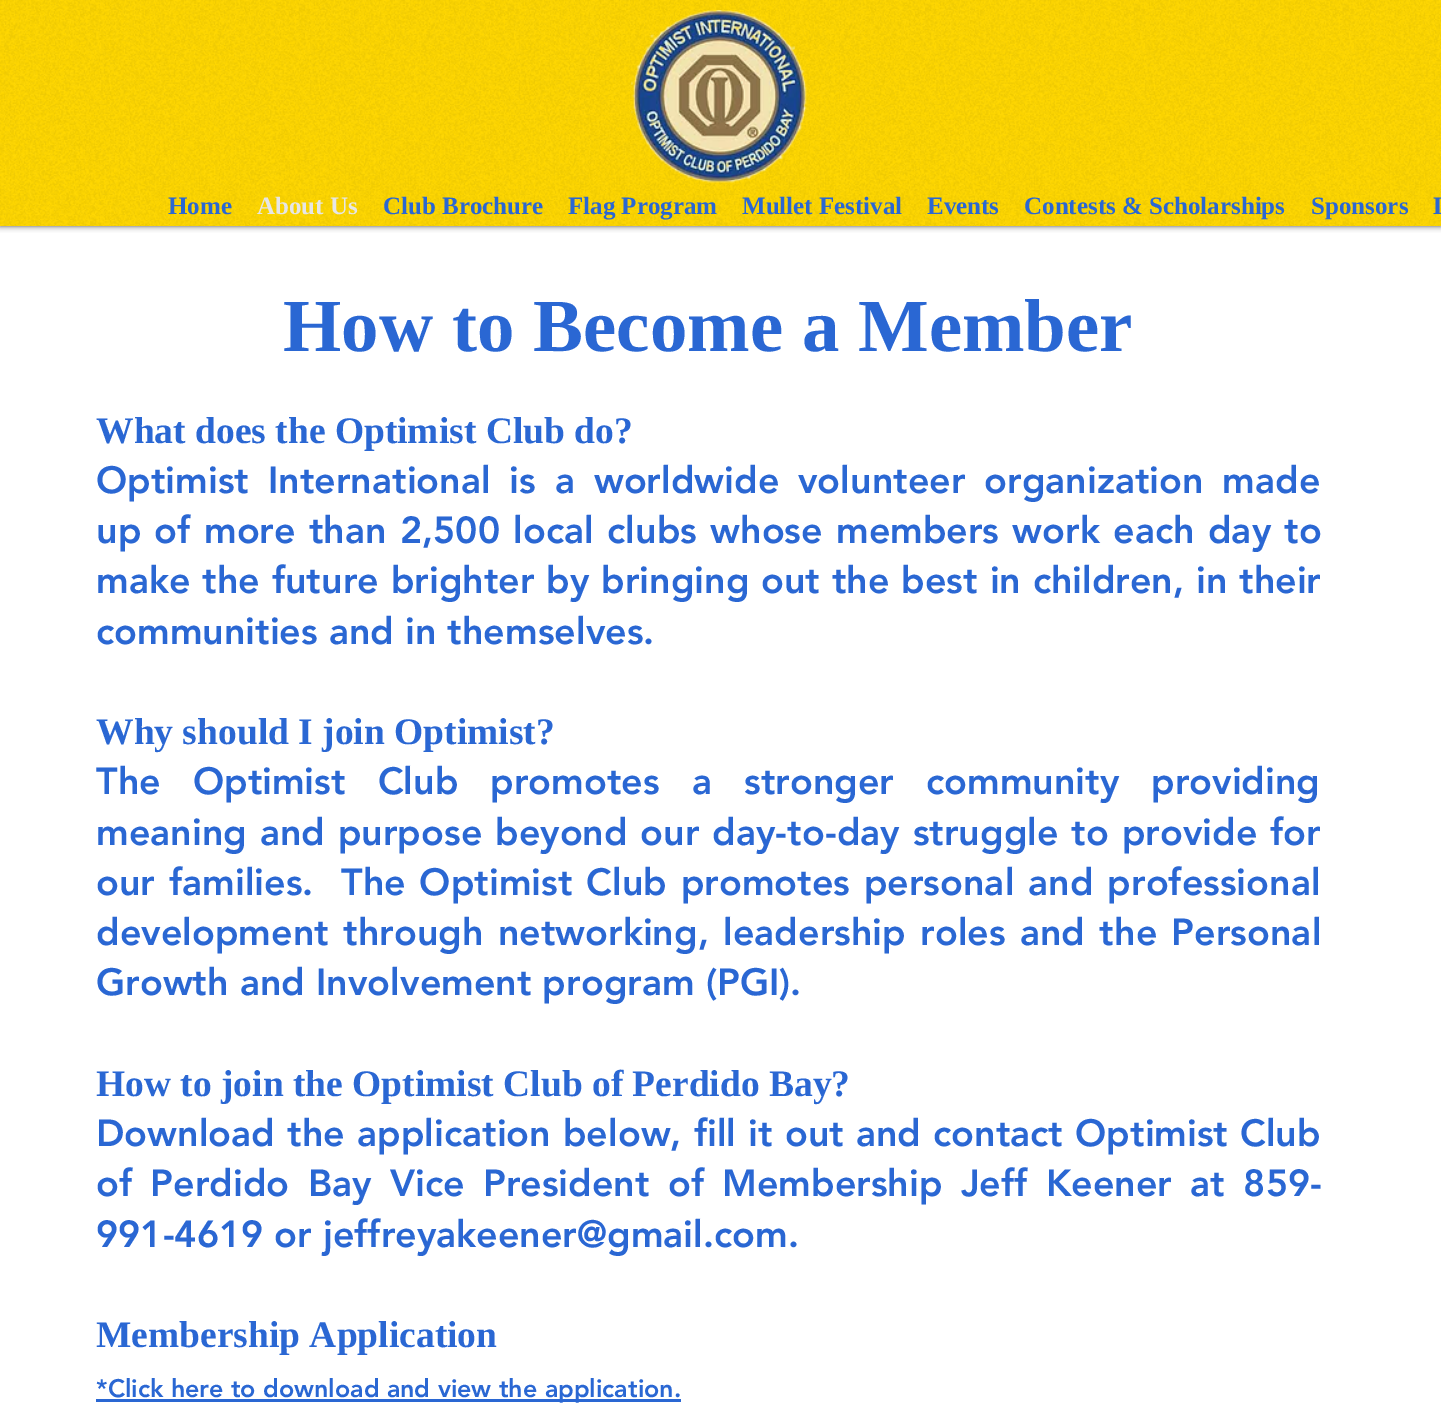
%!PS-Adobe-3.0
%%BoundingBox: 0 0 1441 1422
%%LanguageLevel: 3
%%Pages: 1
%%EndComments
%%BeginProlog
/m { moveto } bind def
/fn { [ exch dup neg 0 0 3 -1 roll 0 0 ] selectfont } def
/tx { moveto show } def
/bx { rectfill } def
/al { dup .setfillconstantalpha .setstrokeconstantalpha } def
/rr { 5 dict begin { /r /h /w /y /x } { exch def } forall
  x r add y moveto x w add y 2 copy h add r arct x w add y h add x 1 index r arct
  x y h add x y r arct x y 2 copy exch w add exch r arct closepath end } def
/sh { 12 dict begin { /a /b /q /h /w /y /x } { exch def } forall gsave /was 0 def
  9 -2 -9 { dup b mul 4 div /e exch def 1 sub .425 mul 2.718 exch exp 1 add a .99 .min exch div /now exch def
    1 1 now sub 1 was sub div sub al /was now def
    w h .min e 2 mul add 0 gt { x e sub y e sub w e 2 mul add h e 2 mul add
      q e add b .6 mul add w h .min 2 div e add .min 0 .max rr fill } if } for grestore end } def
/im { 5 dict begin { /h /w /y /x /name } { exch def } forall
  gsave x y translate w h scale
  w h 8 [w 0 0 h 0 0] name (r) file false 3 colorimage grestore end } def
%%EndProlog
%%BeginSetup
<< /PageSize [1441 1422] /PageUsesTransparency true >> setpagedevice
%%EndSetup
%%Page: 1 1
0 .pushpdf14devicefilter
0 1422 translate 1 -1 scale
4 setmiterlimit
1 setgray
0 0 1441 1422 bx
0 setgray
0 0 1441 226 0 3 0.7 sh
1 0.843 0 setrgbcolor
0 0 1441 226 bx
(image0.raw) 0 0 1441 226 im
(image1.raw) 631 10 176 173 im
/LiberationSerif-Bold 25 fn
0.165 0.404 0.827 setrgbcolor
(Home) 168 214 tx
0.902 setgray
(About Us) 257 214 tx
0.165 0.404 0.827 setrgbcolor
(Club Brochure) 383 214 tx
(Flag Program) 568 214 tx
(Mullet Festival) 742 214 tx
(Events) 927 214 tx
(Contests & Scholarships) 1024 214 tx
(Sponsors) 1311 214 tx
(L) 1433 214 tx
/LiberationSerif-Bold 75 fn
(How to Become a Member) 283 351 tx
/LiberationSerif-Bold 37.5 fn
(What does the Optimist Club do?) 96 443 tx
/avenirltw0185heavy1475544-Black 37.5 fn
96 493 m 7.75 0 32 (Optimist International is a worldwide volunteer organization made) widthshow
96 543 m 2.25 0 32 (up of more than 2,500 local clubs whose members work each day to) widthshow
96 593 m 0.75 0 32 (make the future brighter by bringing out the best in children, in their) widthshow
(communities and in themselves.) 96 644 tx
/LiberationSerif-Bold 37.5 fn
(Why should I join Optimist?) 96 744 tx
/avenirltw0185heavy1475544-Black 37.5 fn
96 794 m 21 0 32 (The Optimist Club promotes a stronger community providing) widthshow
96 845 m 1.75 0 32 (meaning and purpose beyond our day-to-day struggle to provide for) widthshow
96 895 m 2.75 0 32 (our families.  The Optimist Club promotes personal and professional) widthshow
96 945 m 3.25 0 32 (development through networking, leadership roles and the Personal) widthshow
(Growth and Involvement program \(PGI\).) 96 995 tx
/LiberationSerif-Bold 37.5 fn
(How to join the Optimist Club of Perdido Bay?) 96 1096 tx
/avenirltw0185heavy1475544-Black 37.5 fn
96 1146 m 1 0 32 (Download the application below, fill it out and contact Optimist Club) widthshow
96 1196 m 7.25 0 32 (of Perdido Bay Vice President of Membership Jeff Keener at 859-) widthshow
(991-4619 or jeffreyakeener@gmail.com.) 96 1247 tx
/LiberationSerif-Bold 37.5 fn
(Membership Application) 96 1347 tx
96 1399 585 3 bx
/avenirltw0185heavy1475544-Black 25 fn
(*Click here to download and view the application.) 96 1397 tx
.poppdf14devicefilter showpage
%%EOF
